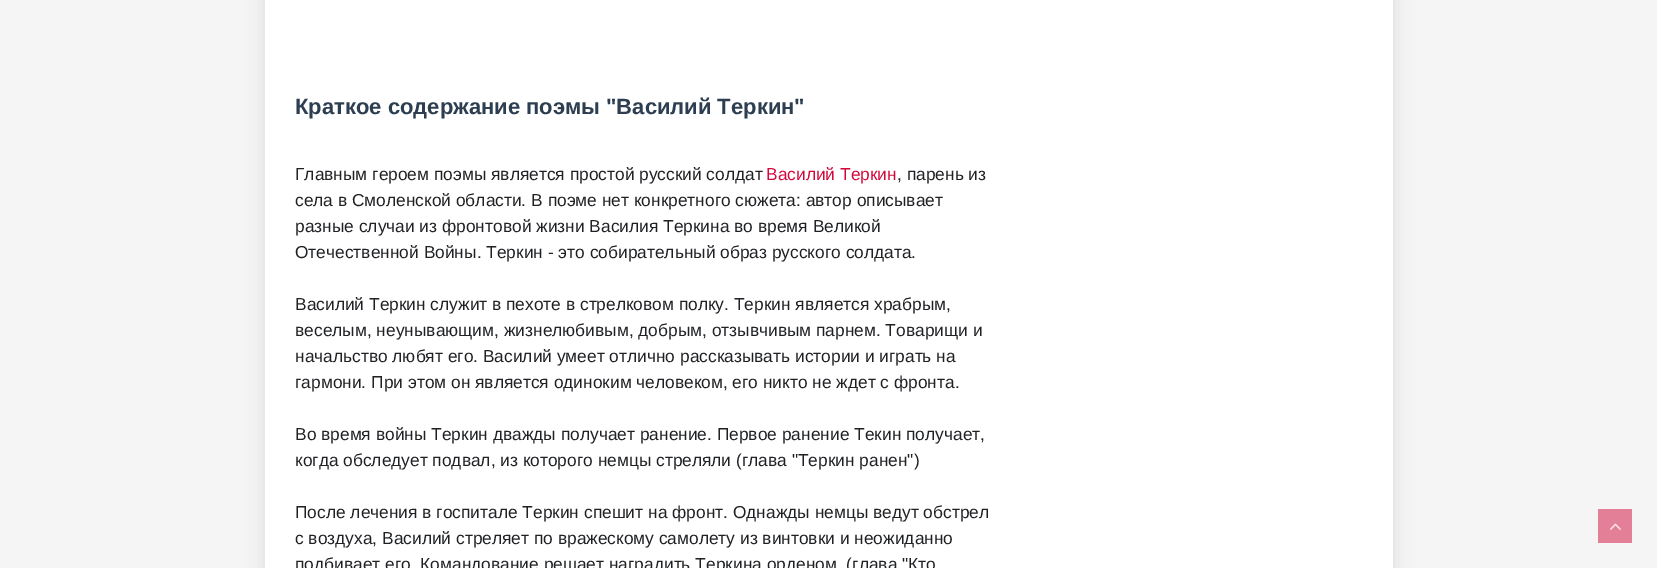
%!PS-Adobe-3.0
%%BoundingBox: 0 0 1657 568
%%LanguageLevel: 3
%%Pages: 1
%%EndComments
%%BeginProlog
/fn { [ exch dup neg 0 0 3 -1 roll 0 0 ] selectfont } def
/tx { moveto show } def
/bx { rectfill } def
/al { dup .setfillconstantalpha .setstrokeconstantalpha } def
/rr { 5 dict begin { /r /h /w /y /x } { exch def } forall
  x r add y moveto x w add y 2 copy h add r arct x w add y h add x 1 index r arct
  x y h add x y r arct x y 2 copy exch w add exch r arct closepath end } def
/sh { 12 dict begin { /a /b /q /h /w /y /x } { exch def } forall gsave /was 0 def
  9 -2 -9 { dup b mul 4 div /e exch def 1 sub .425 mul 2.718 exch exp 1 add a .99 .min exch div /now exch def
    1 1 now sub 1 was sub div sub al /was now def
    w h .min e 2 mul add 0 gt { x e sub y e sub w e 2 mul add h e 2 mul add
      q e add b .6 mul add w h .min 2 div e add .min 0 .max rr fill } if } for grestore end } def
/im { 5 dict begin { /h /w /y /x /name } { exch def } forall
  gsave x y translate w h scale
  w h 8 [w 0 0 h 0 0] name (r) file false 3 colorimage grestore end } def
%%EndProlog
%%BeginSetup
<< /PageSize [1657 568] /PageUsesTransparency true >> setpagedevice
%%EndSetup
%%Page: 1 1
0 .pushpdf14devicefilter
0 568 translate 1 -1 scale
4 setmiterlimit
0.961 setgray
0 0 1657 568 bx
0 setgray
265 -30 1128 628 0 10 0.1 sh
1 setgray
265 0 1128 568 bx
/LiberationSans-Bold 22 fn
0.173 0.243 0.314 setrgbcolor
(Краткое содержание поэмы "Василий Теркин") 295 114 tx
/LiberationSans-Regular 17.35 fn
0.125 0.129 0.141 setrgbcolor
(Главным героем поэмы является простой русский солдат) 295 180 tx
0.824 0.031 0.231 setrgbcolor
(Василий Теркин) 766 180 tx
0.125 0.129 0.141 setrgbcolor
(, парень из) 897 180 tx
(села в Смоленской области. В поэме нет конкретного сюжета: автор описывает) 295 206 tx
(разные случаи из фронтовой жизни Василия Теркина во время Великой) 295 232 tx
(Отечественной Войны. Теркин - это собирательный образ русского солдата.) 295 258 tx
(Василий Теркин служит в пехоте в стрелковом полку. Теркин является храбрым,) 295 310 tx
(веселым, неунывающим, жизнелюбивым, добрым, отзывчивым парнем. Товарищи и) 295 336 tx
(начальство любят его. Василий умеет отлично рассказывать истории и играть на) 295 362 tx
(гармони. При этом он является одиноким человеком, его никто не ждет с фронта.) 295 388 tx
(Во время войны Теркин дважды получает ранение. Первое ранение Текин получает,) 295 440 tx
(когда обследует подвал, из которого немцы стреляли \(глава "Теркин ранен"\)) 295 466 tx
(После лечения в госпитале Теркин спешит на фронт. Однажды немцы ведут обстрел) 295 518 tx
(с воздуха, Василий стреляет по вражескому самолету из винтовки и неожиданно) 295 544 tx
(подбивает его. Командование решает наградить Теркина орденом. \(глава "Кто) 295 570 tx
0.894 0.498 0.596 setrgbcolor
1598 509 34 34 bx
(image0.raw) 1610 523 11 7 im
.poppdf14devicefilter showpage
%%EOF
